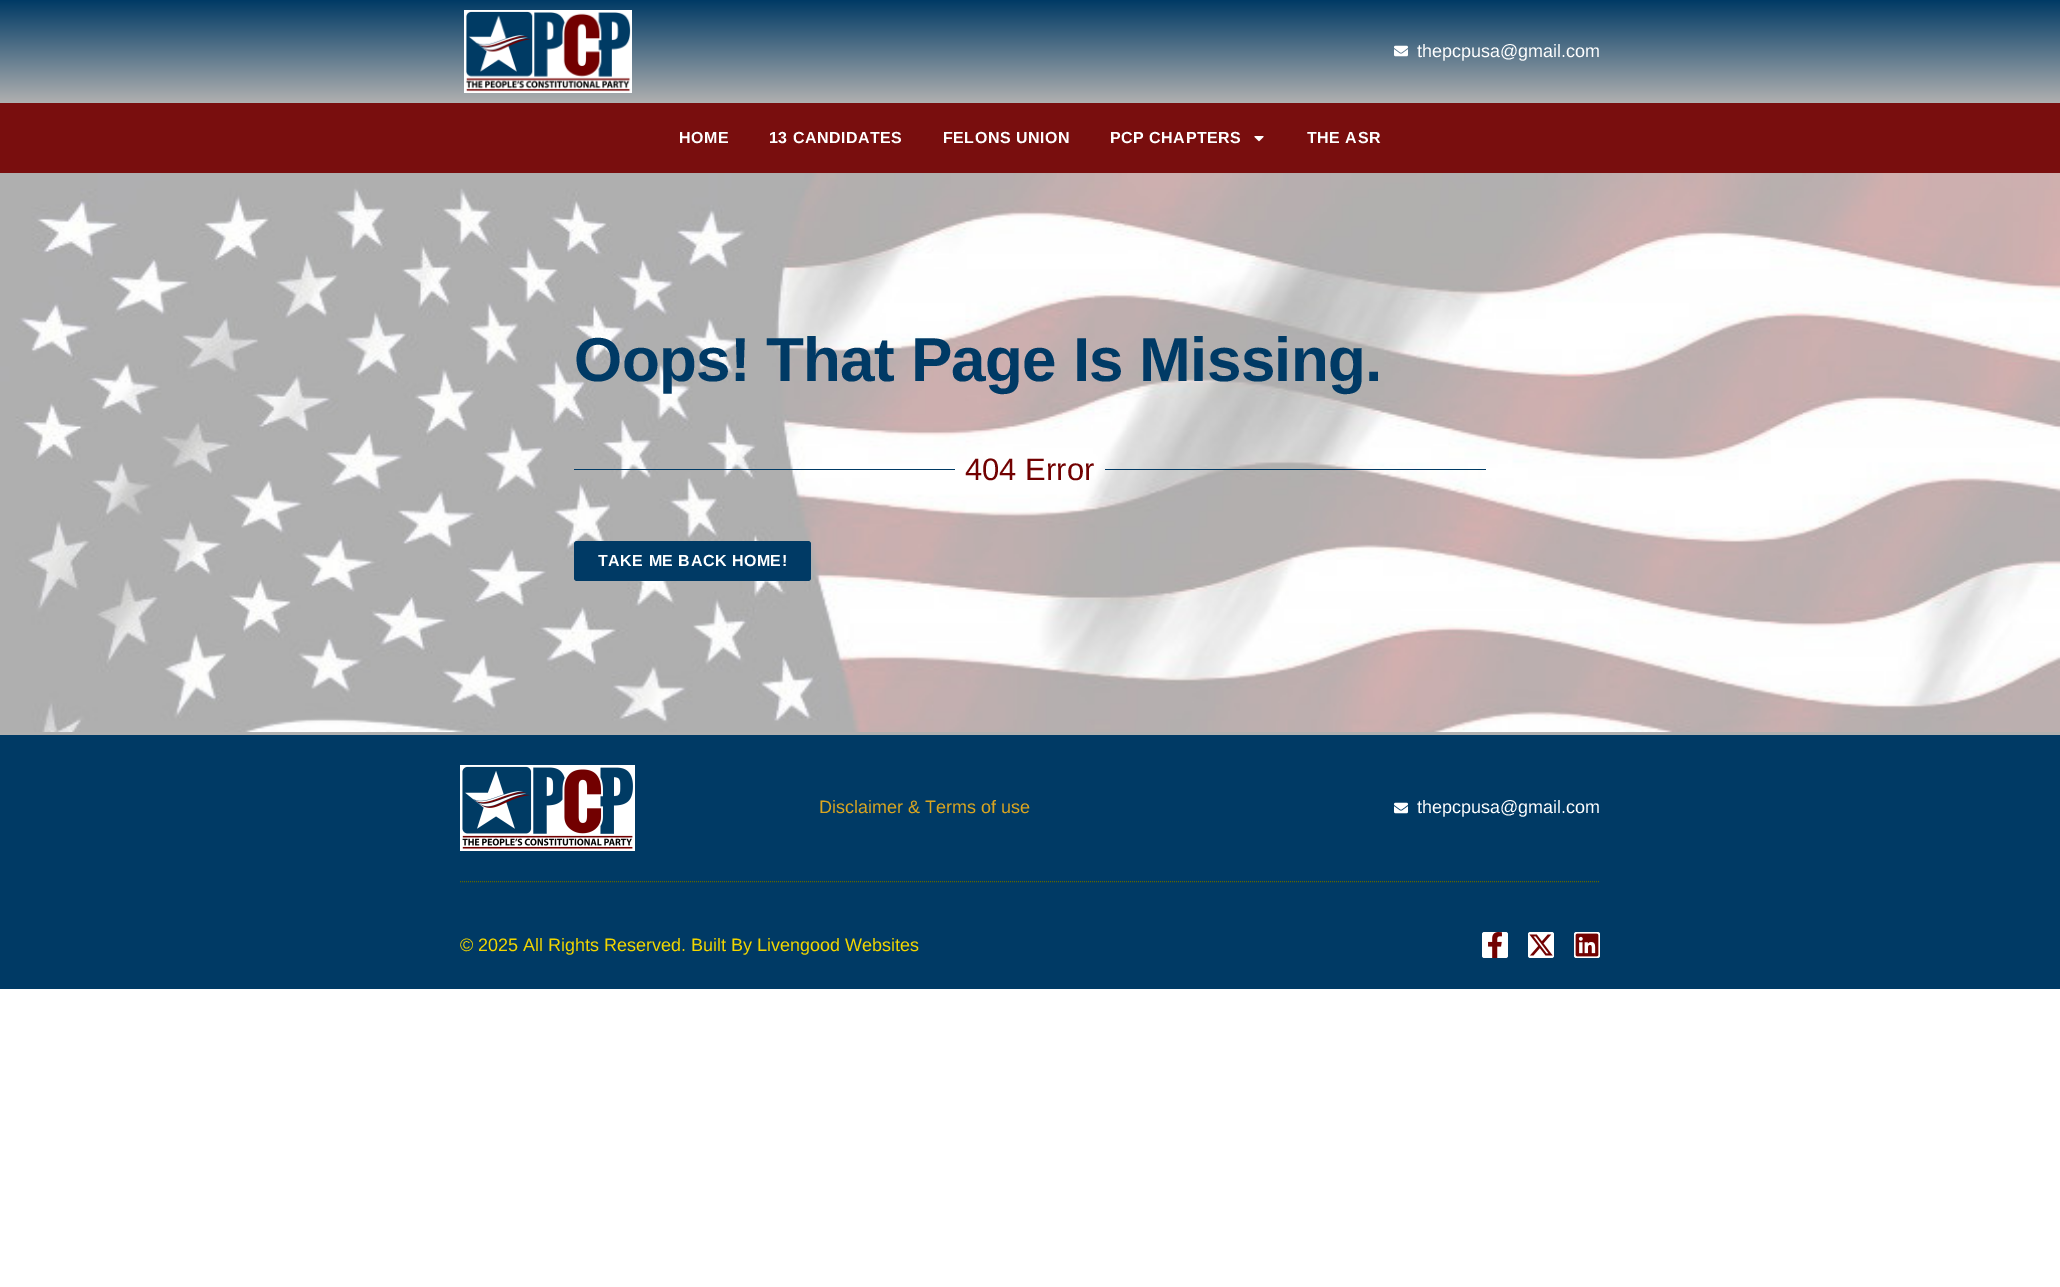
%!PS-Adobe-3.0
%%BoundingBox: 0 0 2060 1287
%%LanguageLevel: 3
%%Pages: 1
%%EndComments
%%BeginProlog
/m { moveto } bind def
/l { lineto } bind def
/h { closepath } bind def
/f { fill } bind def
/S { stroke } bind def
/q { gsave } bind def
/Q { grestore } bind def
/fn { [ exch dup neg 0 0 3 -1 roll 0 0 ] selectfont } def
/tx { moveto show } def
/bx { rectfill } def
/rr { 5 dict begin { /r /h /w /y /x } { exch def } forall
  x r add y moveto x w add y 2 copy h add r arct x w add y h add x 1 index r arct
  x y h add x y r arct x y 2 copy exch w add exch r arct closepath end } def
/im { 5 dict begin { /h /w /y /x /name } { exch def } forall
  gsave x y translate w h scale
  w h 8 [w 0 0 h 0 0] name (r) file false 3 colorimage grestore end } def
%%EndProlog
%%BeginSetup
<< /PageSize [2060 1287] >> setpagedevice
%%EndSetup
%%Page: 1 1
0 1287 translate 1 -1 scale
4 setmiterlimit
1 setgray
0 0 2060 1287 bx
q 0 0 m 2060 0 l 2060 103 l 0 103 l h clip newpath
<< /ShadingType 2 /ColorSpace /DeviceRGB /Coords [1030 0 1030 103] /Extend [true true] /Function << /FunctionType 2 /Domain [0 1] /C0 [0 0.227 0.396] /C1 [0.69 0.69 0.69] /N 1 >> >> shfill Q
(image0.raw) 464 10 168 83 im
(image1.raw) 1394 45 14 12 im
/LiberationSans-Regular 18 fn
(thepcpusa@gmail.com) 1417 57 tx
0.475 0.055 0.055 setrgbcolor
0 103 2060 70 bx
/LiberationSans-Bold 16 fn
1 setgray
679 143 m 0.5 0 (HOME) ashow
769 143 m 0.5 0 (13 CANDIDATES) ashow
943 143 m 0.5 0 (FELONS UNION) ashow
1110 143 m 0.5 0 (PCP CHAPTERS) ashow
(image2.raw) 1254 136 10 6 im
1307 143 m 0.5 0 (THE ASR) ashow
(image3.raw) 0 173 2060 559 im
/LiberationSans-Bold 62 fn
0 0.227 0.396 setrgbcolor
574 381 m -0.7 0 (Oops! That Page Is Missing.) ashow
574 469 381 1 bx
/LiberationSans-Regular 31 fn
0.447 0.004 0.004 setrgbcolor
(404 Error) 965 480 tx
0 0.227 0.396 setrgbcolor
1105 469 381 1 bx
574 541 237 40 3 rr f
/LiberationSans-Bold 16 fn
1 setgray
598 566 m 0.5 0 (TAKE ME BACK HOME!) ashow
0 0.227 0.396 setrgbcolor
0 735 2060 254 bx
0.69 setgray
0 732 2060 3 bx
0.361 0.404 0 setrgbcolor
[1 1] 0 setdash
460 881.5 m 1600 881.5 l S
(image4.raw) 460 765 175 86 im
/LiberationSans-Regular 18 fn
0.855 0.647 0.125 setrgbcolor
(Disclaimer & Terms of use) 819 813 tx
(image5.raw) 1394 802 14 12 im
1 setgray
(thepcpusa@gmail.com) 1417 813 tx
0.949 0.839 0 setrgbcolor
(© 2025 All Rights Reserved. Built By Livengood Websites) 460 951 tx
1 setgray
1482 932 26 26 2.5 rr f
(image6.raw) 1488 932 14 26 im
1528 932 26 26 2.5 rr f
(image7.raw) 1529 934 24 22 im
1574 932 26 26 2.5 rr f
(image8.raw) 1575 933 24 24 im
showpage
%%EOF
